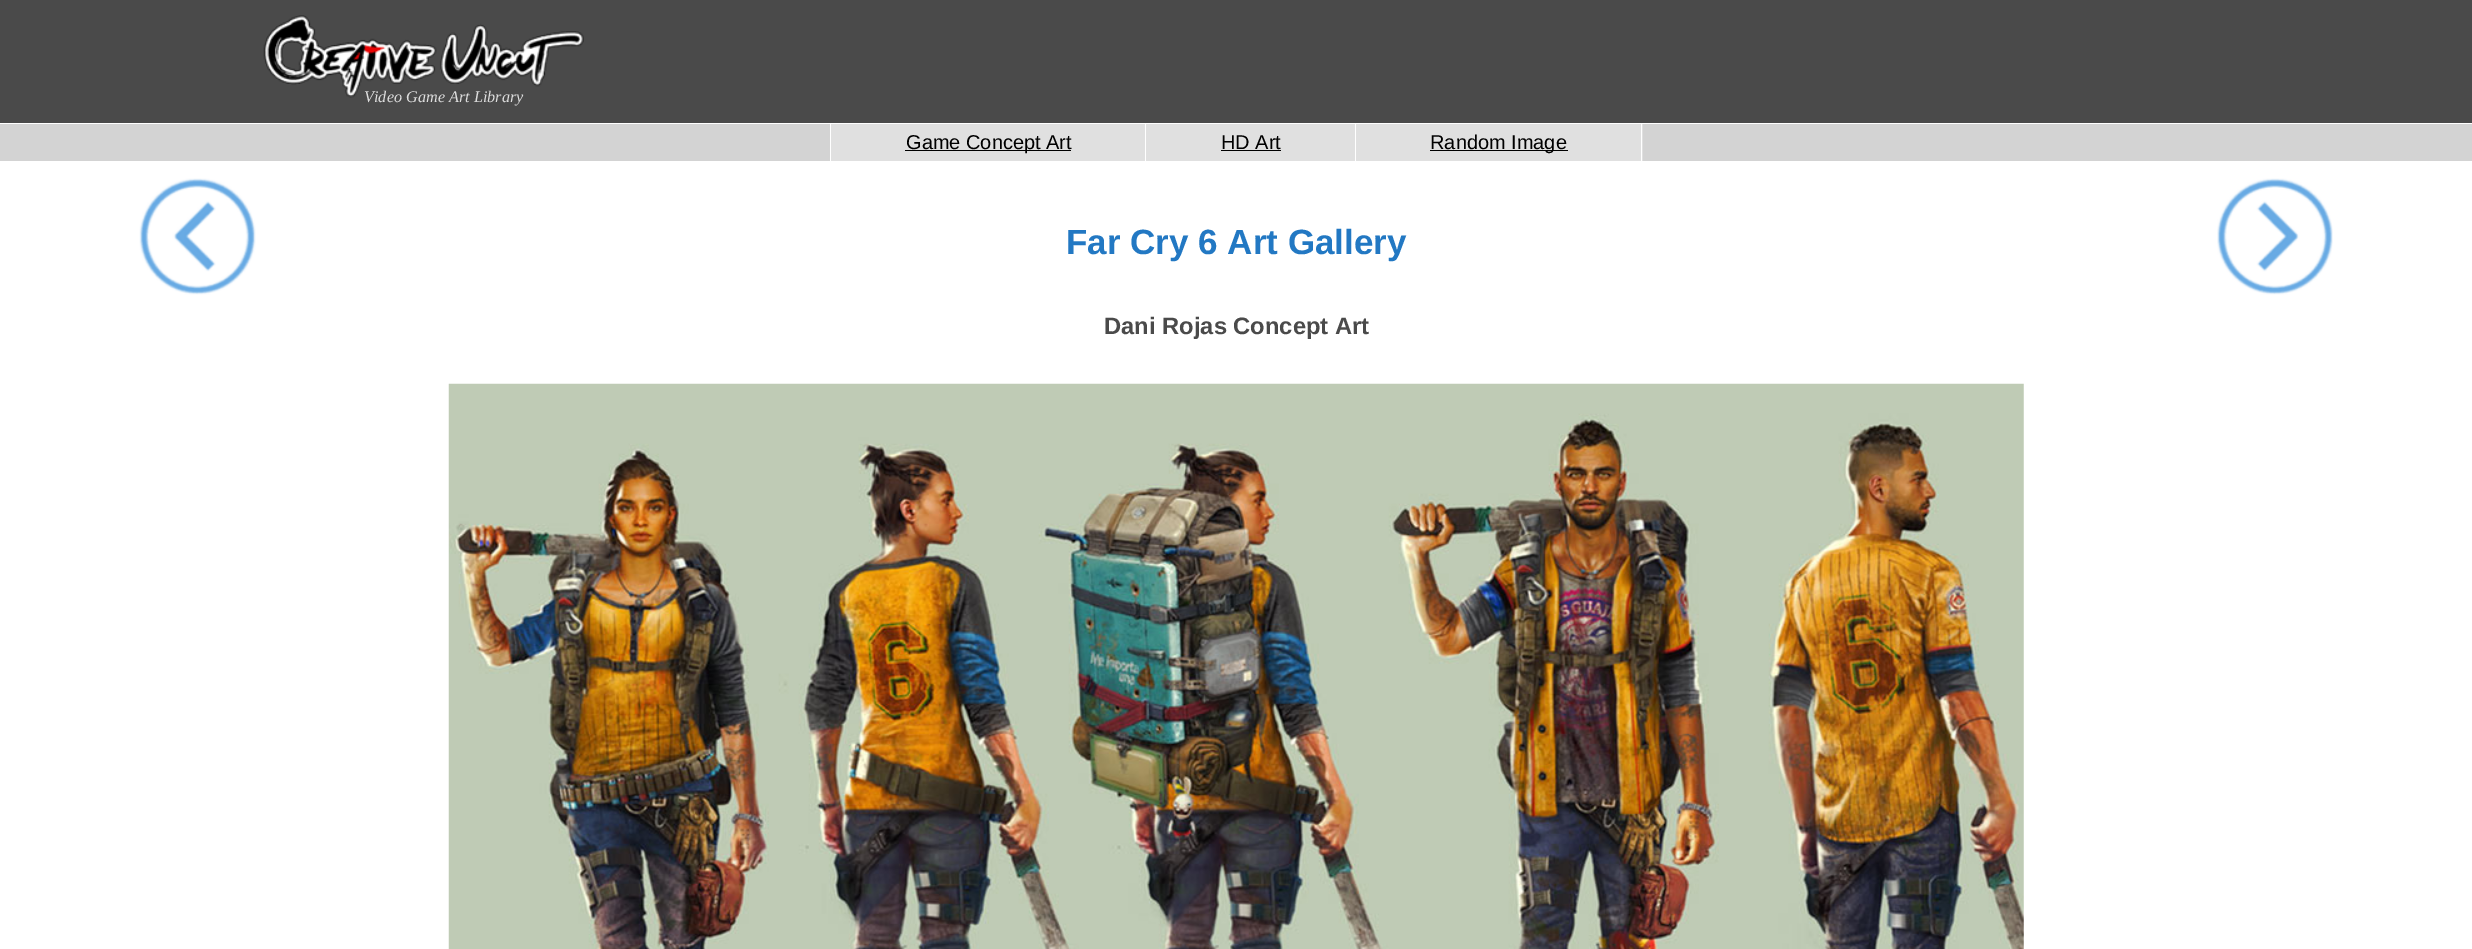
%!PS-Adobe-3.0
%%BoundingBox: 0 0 2472 949
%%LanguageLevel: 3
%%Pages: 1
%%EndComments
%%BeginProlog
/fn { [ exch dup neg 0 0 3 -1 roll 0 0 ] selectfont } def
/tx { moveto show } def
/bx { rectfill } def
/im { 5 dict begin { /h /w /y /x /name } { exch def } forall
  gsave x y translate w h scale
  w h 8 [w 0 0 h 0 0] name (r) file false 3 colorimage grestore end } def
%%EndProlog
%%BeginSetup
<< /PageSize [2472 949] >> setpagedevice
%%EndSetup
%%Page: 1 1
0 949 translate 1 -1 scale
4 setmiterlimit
1 setgray
0 0 2472 949 bx
0.29 setgray
0 0 2472 123 bx
(image0.raw) 263 15 321 83 im
/LiberationSerif-Italic 16.25 fn
0.867 setgray
(Video Game Art Library) 364 102 tx
0.827 setgray
0 124 2472 37 bx
0.878 setgray
831 124 314 37 bx
1 setgray
830 124 1 37 bx
0 setgray
905 150 166 1 bx
/LiberationSans-Regular 20 fn
(Game Concept Art) 906 149 tx
0.878 setgray
1146 124 209 37 bx
1 setgray
1145 124 1 37 bx
0 setgray
(HD Art) 1221 149 tx
1221 150 60 1 bx
0.878 setgray
1356 124 287 37 bx
1 setgray
1641 124 1 37 bx
1355 124 1 37 bx
0 setgray
1430 150 138 1 bx
(Random Image) 1430 149 tx
(image1.raw) 139 178 117 117 im
/LiberationSans-Bold 35 fn
0.133 0.471 0.765 setrgbcolor
(Far Cry 6 Art Gallery) 1066 254 tx
(image2.raw) 2217 178 116 117 im
/LiberationSans-Bold 23.75 fn
0.29 setgray
(Dani Rojas Concept Art) 1104 334 tx
(image3.raw) 448 383 1576 566 im
showpage
%%EOF
